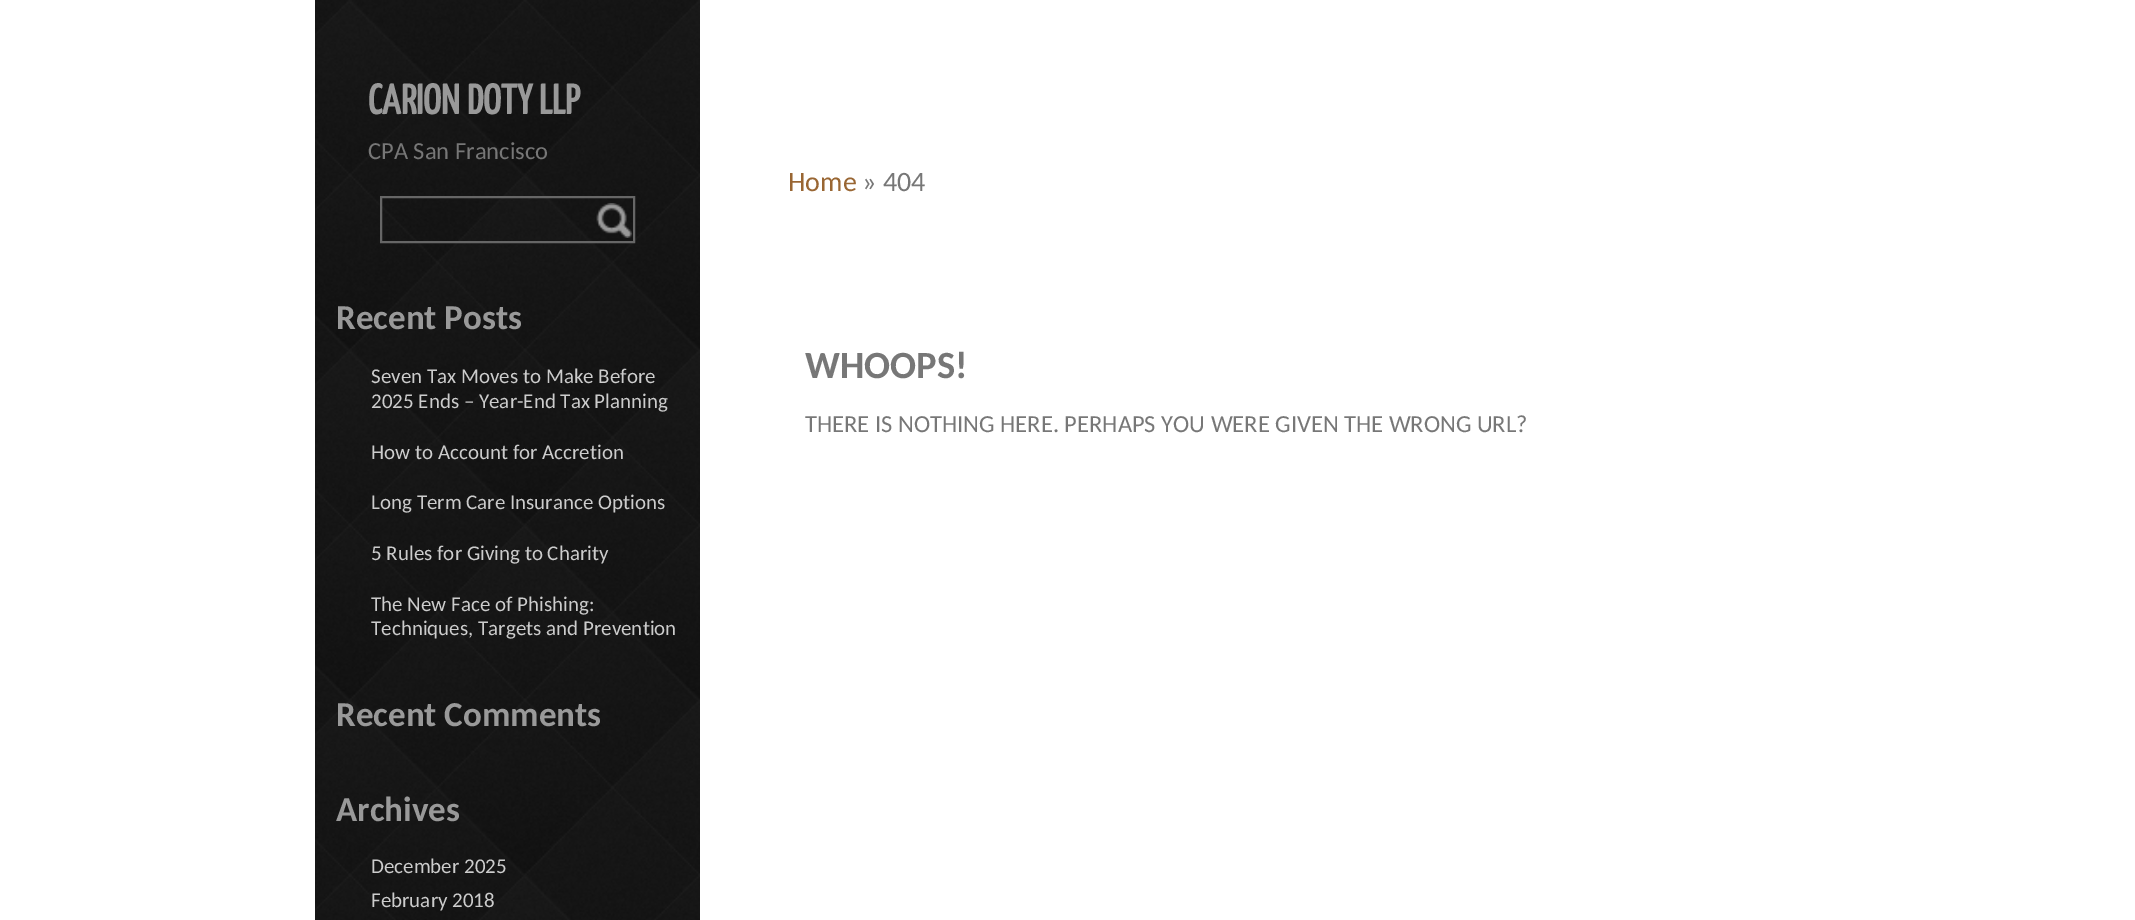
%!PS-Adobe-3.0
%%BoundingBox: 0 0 2135 920
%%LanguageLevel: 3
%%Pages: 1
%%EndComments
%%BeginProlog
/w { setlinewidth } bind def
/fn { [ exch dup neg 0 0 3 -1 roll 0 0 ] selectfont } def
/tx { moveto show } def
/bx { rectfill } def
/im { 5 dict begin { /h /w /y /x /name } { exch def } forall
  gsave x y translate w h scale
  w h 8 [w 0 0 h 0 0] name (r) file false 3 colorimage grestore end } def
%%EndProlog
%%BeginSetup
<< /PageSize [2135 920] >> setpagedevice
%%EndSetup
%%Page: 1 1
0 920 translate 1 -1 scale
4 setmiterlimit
1 setgray
0 0 2135 920 bx
(image0.raw) 315 0 385 920 im
/YanoneKaffeesatz-Bold 42 fn
0.6 setgray
(CARION DOTY LLP) 368 114 tx
/Carlito-Regular 24.5 fn
0.467 setgray
(CPA San Francisco) 368 159 tx
0.4 setgray
2 w
381 197 253 45 rectstroke
(image1.raw) 596 203 36 35 im
/Carlito-Bold 35 fn
0.6 setgray
(Recent Posts) 336 329 tx
/Carlito-Regular 21 fn
0.8 setgray
(Seven Tax Moves to Make Before) 371 383 tx
(2025 Ends – Year-End Tax Planning) 371 408 tx
(How to Account for Accretion) 371 459 tx
(Long Term Care Insurance Options) 371 509 tx
(5 Rules for Giving to Charity) 371 560 tx
(The New Face of Phishing:) 371 611 tx
(Techniques, Targets and Prevention) 371 635 tx
/Carlito-Bold 35 fn
0.6 setgray
(Recent Comments) 336 726 tx
(Archives) 336 821 tx
/Carlito-Regular 21 fn
0.8 setgray
(December 2025) 371 873 tx
(February 2018) 371 907 tx
/Carlito-Regular 28 fn
0.6 0.4 0.2 setrgbcolor
(Home) 788 191 tx
0.467 setgray
(» 404) 862 191 tx
/Carlito-Bold 38.5 fn
(WHOOPS!) 805 378 tx
/Carlito-Regular 24.5 fn
(THERE IS NOTHING HERE. PERHAPS YOU WERE GIVEN THE WRONG URL?) 805 432 tx
showpage
%%EOF
